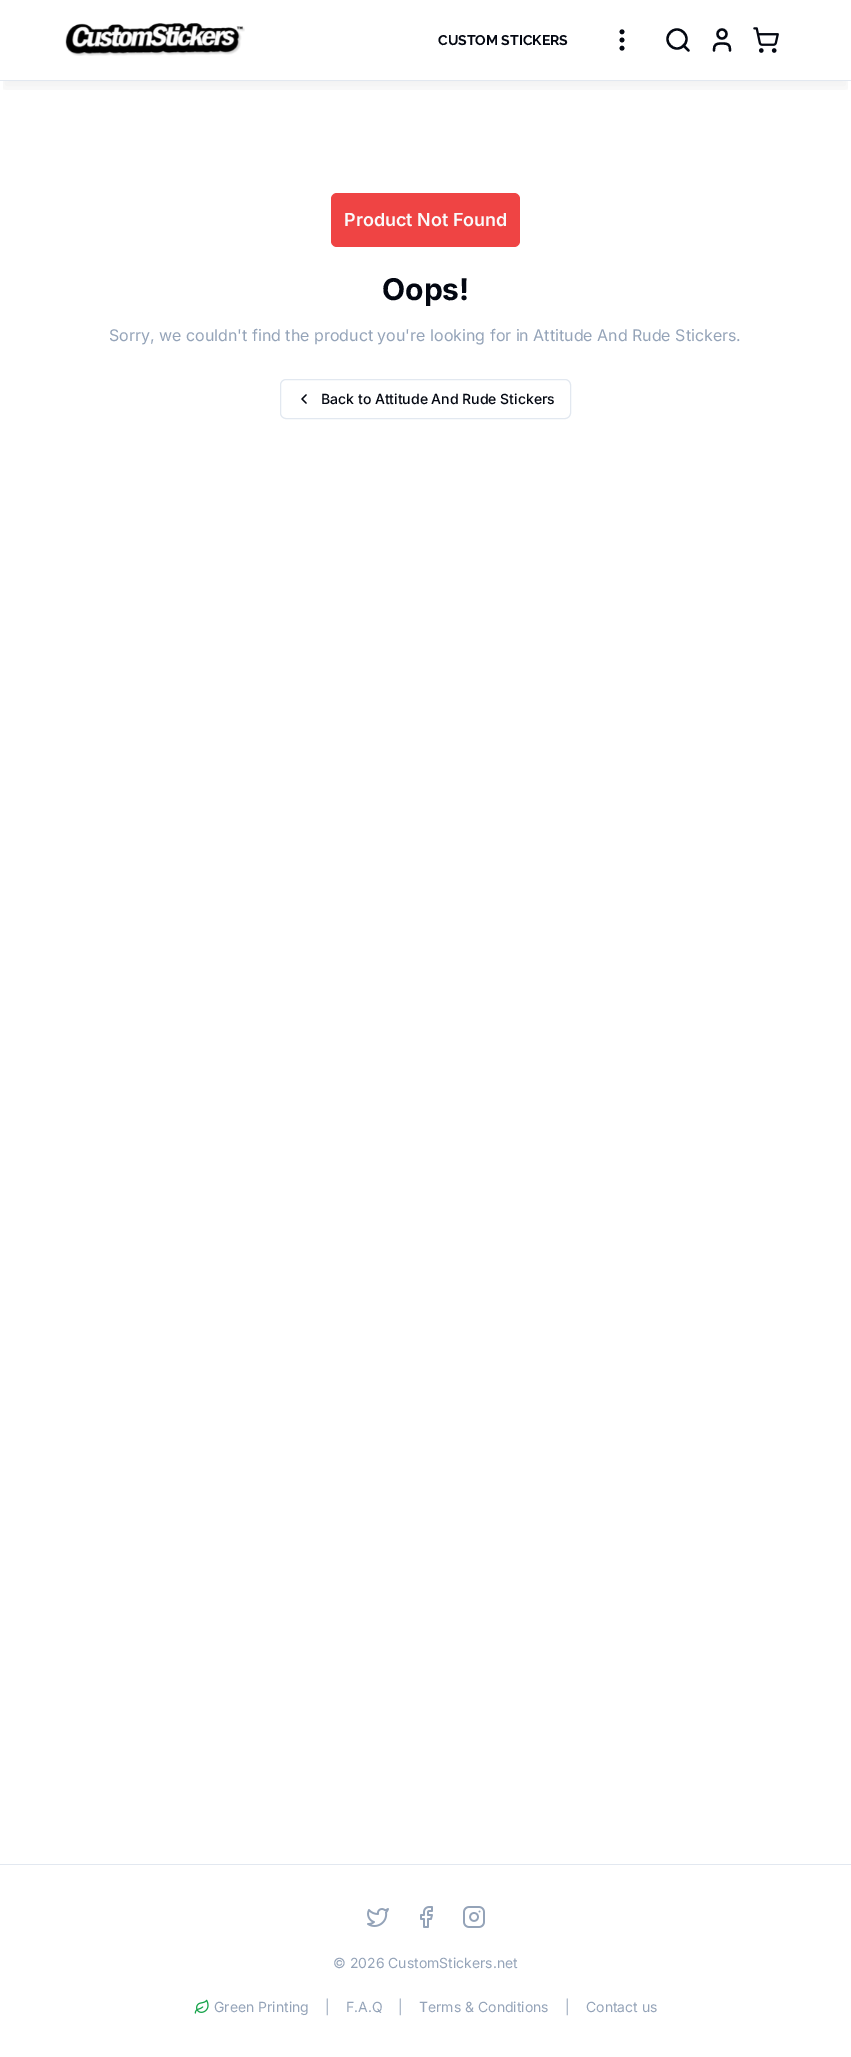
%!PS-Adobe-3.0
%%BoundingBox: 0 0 851 2057
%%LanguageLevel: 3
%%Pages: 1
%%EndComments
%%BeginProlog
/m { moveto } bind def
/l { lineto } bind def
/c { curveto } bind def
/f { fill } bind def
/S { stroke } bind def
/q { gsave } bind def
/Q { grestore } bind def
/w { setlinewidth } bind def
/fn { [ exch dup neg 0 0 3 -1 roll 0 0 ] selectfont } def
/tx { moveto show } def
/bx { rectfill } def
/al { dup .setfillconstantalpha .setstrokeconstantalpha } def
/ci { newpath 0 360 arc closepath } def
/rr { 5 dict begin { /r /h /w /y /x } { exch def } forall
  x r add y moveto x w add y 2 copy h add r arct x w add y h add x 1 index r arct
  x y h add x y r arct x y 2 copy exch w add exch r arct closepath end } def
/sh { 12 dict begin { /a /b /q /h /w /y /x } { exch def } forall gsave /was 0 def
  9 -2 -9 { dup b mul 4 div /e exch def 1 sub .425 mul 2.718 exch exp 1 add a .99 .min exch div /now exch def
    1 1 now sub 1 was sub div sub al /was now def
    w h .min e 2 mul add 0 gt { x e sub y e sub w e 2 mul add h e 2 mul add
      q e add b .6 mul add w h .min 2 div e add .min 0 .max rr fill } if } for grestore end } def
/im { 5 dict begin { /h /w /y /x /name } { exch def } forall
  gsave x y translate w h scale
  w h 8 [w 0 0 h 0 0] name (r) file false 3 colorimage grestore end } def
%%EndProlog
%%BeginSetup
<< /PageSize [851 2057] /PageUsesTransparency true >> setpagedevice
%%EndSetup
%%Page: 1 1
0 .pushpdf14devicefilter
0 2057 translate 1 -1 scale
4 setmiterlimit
1 setgray
0 0 851 2057 bx
q
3 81 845 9 rectclip
0 setgray
3 13 845 75 0 7.5 0.05 sh
Q
0.886 0.91 0.941 setrgbcolor
0 80 851 1 bx
(image0.raw) 65 23 180 33 im
/Raleway-Bold 14 fn
0.012 0.027 0.067 setrgbcolor
(CUSTOM STICKERS) 438 45 tx
2.3 w
622 40 1.2 ci S
622 31.8 1.2 ci S
622 48.2 1.2 ci S
677 39 9.5 ci S
1 setlinecap
1 setlinejoin
688.5 50.5 m 683.5 45.5 l 730 50.5 m 730 44 728 43.5 722 43.5 c 716 43.5 714 44 714 50.5 c S
(image1.raw) 753 27 26 26 im
0 setlinecap
0 setlinejoin
722 34 4.5 ci S
0.937 0.267 0.267 setrgbcolor
331 193 189 54 6 rr f
/Inter-SemiBold 18 fn
0.98 setgray
(Product Not Found) 344 226 tx
/Inter-Bold 30 fn
0.012 0.027 0.067 setrgbcolor
(Oops!) 382 300 tx
/Inter-Regular 16 fn
0.58 0.639 0.722 setrgbcolor
(Sorry, we couldn't find the product you're looking for in Attitude And Rude Stickers.) 109 341 tx
0.886 0.91 0.941 setrgbcolor
1 w
280.5 379.5 290 39 5.5 rr S
0.012 0.027 0.067 setrgbcolor
1.3 w
1 setlinecap
1 setlinejoin
306 395 m 302 399 l 306 403 l S
/Inter-Medium 14 fn
(Back to Attitude And Rude Stickers) 321 404 tx
0.886 0.91 0.941 setrgbcolor
0 1864 851 1 bx
(image2.raw) 367 1908 22 19 im
(image3.raw) 420 1906 13 22 im
(image4.raw) 463 1906 22 22 im
/Inter-Regular 14 fn
0.58 0.639 0.722 setrgbcolor
(© 2026 CustomStickers.net) 333 1968 tx
(image5.raw) 194 1999 15 15 im
(Green Printing) 214 2012 tx
(|) 325 2012 tx
(F.A.Q) 346 2012 tx
(|) 398 2012 tx
(Terms & Conditions) 419 2012 tx
(|) 565 2012 tx
(Contact us) 586 2012 tx
.poppdf14devicefilter showpage
%%EOF
